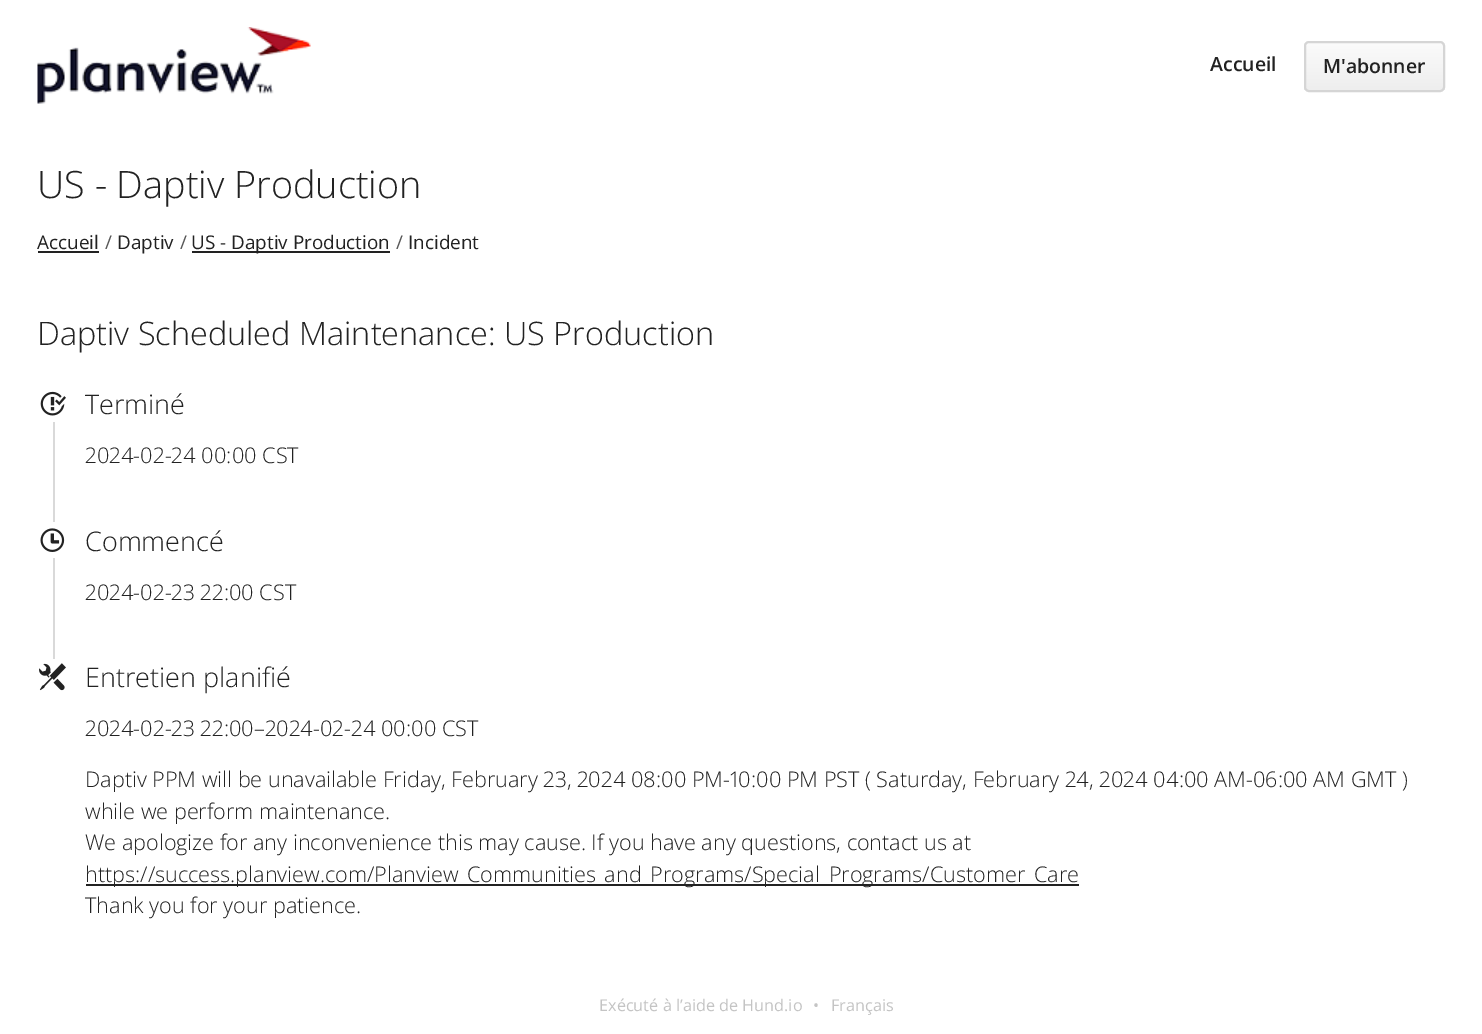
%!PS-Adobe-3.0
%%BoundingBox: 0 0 1482 1034
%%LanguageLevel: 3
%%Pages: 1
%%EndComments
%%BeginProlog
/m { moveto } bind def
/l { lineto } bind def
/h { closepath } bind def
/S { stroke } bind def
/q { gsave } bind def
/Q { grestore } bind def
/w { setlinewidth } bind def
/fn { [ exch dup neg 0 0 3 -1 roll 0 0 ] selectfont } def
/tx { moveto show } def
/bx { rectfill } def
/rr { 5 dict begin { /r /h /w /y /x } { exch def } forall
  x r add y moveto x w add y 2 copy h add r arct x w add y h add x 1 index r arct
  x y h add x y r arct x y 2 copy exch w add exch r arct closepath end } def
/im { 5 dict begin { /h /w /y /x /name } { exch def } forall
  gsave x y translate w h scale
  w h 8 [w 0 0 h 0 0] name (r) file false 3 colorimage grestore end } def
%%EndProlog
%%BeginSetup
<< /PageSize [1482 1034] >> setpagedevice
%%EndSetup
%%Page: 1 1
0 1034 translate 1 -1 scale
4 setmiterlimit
1 setgray
0 0 1482 1034 bx
(image0.raw) 37 27 274 77 im
/OpenSans-SemiBold 19.5 fn
0.133 setgray
(Accueil) 1210 71 tx
q
1304 41 141 51 5 rr clip newpath
q 1304 42 m 1445 42 l 1445 90 l 1304 90 l h clip newpath
<< /ShadingType 2 /ColorSpace /DeviceRGB /Coords [1374 42 1374 90] /Extend [true true] /Function << /FunctionType 2 /Domain [0 1] /C0 [0.984 0.984 0.984] /C1 [0.933 0.933 0.933] /N 1 >> >> shfill Q
Q
0.835 setgray
2 w
1305 42 139 49 4 rr S
0.133 setgray
(M'abonner) 1323 73 tx
/OpenSans-Light 37.75 fn
(US - Daptiv Production) 37 198 tx
/OpenSans-Regular 18.9 fn
(Accueil) 37 249 tx
38 251 61 2 bx
0.337 setgray
(/) 105 249 tx
0.133 setgray
(Daptiv) 117 249 tx
0.337 setgray
(/) 180 249 tx
0.133 setgray
192 251 198 2 bx
(US - Daptiv Production) 191 249 tx
0.337 setgray
(/) 396 249 tx
0.133 setgray
(Incident) 408 249 tx
/OpenSans-Light 32.4 fn
(Daptiv Scheduled Maintenance: US Production) 37 345 tx
0.851 setgray
53 422 2 237 bx
(image1.raw) 40 391 26 25 im
/OpenSans-Light 27 fn
0.133 setgray
(Terminé) 85 414 tx
/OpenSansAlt-Light 21.6 fn
(2024-02-24 00:00 CST) 85 463 tx
1 setgray
53 522 2 36 bx
(image2.raw) 40 528 25 24 im
/OpenSans-Light 27 fn
0.133 setgray
(Commencé) 85 551 tx
/OpenSansAlt-Light 21.6 fn
(2024-02-23 22:00 CST) 85 600 tx
(image3.raw) 39 663 27 28 im
/OpenSans-Light 27 fn
(Entretien planifié) 85 687 tx
/OpenSansAlt-Light 21.6 fn
(2024-02-23 22:00–2024-02-24 00:00 CST) 85 736 tx
(Daptiv PPM will be unavailable Friday, February 23, 2024 08:00 PM-10:00 PM PST \( Saturday, February 24, 2024 04:00 AM-06:00 AM GMT \)) 85 787 tx
/OpenSans-Light 21.6 fn
(while we perform maintenance.) 85 819 tx
(We apologize for any inconvenience this may cause. If you have any questions, contact us at) 85 850 tx
86 884 993 2 bx
(https://success.planview.com/Planview_Communities_and_Programs/Special_Programs/Customer_Care) 85 882 tx
(Thank you for your patience.) 85 913 tx
/OpenSans-Regular 16.25 fn
0.769 setgray
(Exécuté à l’aide de Hund.io) 599 1011 tx
(•) 813 1011 tx
(Français) 831 1011 tx
showpage
%%EOF
